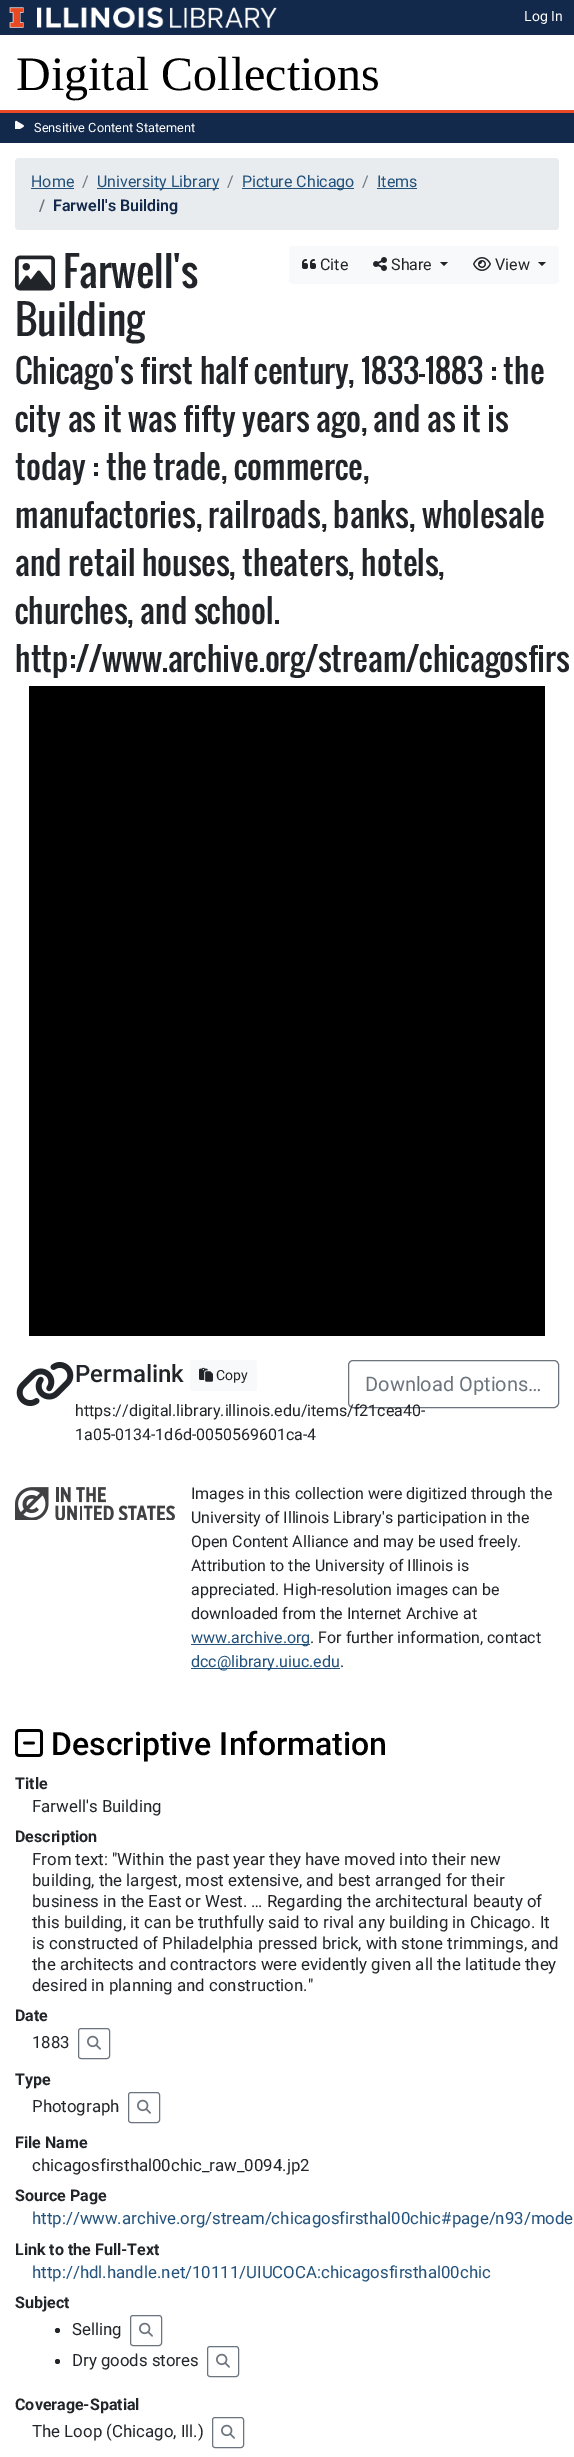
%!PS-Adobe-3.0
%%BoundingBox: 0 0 574 2457
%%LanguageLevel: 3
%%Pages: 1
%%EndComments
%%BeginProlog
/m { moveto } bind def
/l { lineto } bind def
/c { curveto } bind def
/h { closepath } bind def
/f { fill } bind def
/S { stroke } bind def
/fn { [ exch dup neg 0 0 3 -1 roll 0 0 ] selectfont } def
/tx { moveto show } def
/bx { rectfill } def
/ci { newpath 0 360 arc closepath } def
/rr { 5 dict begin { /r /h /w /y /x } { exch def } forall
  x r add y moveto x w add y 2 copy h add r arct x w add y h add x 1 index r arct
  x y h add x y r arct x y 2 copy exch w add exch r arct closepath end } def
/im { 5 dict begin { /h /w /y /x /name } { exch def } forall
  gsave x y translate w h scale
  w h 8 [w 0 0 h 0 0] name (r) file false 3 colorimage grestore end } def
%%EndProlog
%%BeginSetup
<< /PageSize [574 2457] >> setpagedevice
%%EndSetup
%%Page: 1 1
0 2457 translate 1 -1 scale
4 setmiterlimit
1 setgray
0 0 574 2457 bx
0.075 0.161 0.294 setrgbcolor
0 0 574 35 bx
(image0.raw) 9 7 15 21 im
(image1.raw) 37 7 127 21 im
(image2.raw) 170 7 107 21 im
/Roboto-Regular 14 fn
1 setgray
(Log In) 524 21 tx
0.91 0.29 0.153 setrgbcolor
0 110 574 3 bx
/LiberationSerif-Regular 48 fn
0 setgray
(Digital Collections) 16 90 tx
0.075 0.161 0.294 setrgbcolor
0 113 574 30 bx
(image3.raw) 15 120 9 9 im
/Roboto-Regular 12.75 fn
1 setgray
(Sensitive Content Statement) 34 132 tx
0.914 0.925 0.937 setrgbcolor
15 158 544 72 4 rr f
/Roboto-Regular 16 fn
0.137 0.322 0.486 setrgbcolor
(Home) 31 187 tx
31 188 43 1 bx
0.424 0.459 0.49 setrgbcolor
(/) 82 187 tx
0.137 0.322 0.486 setrgbcolor
97 188 122 1 bx
(University Library) 97 187 tx
0.424 0.459 0.49 setrgbcolor
(/) 227 187 tx
0.137 0.322 0.486 setrgbcolor
242 188 112 1 bx
(Picture Chicago) 242 187 tx
0.424 0.459 0.49 setrgbcolor
(/) 362 187 tx
0.137 0.322 0.486 setrgbcolor
(Items) 377 187 tx
377 188 40 1 bx
/Roboto-SemiBold 16 fn
0.424 0.459 0.49 setrgbcolor
(/) 39 211 tx
0.075 0.161 0.294 setrgbcolor
(Farwell's Building) 53 211 tx
(image4.raw) 15 255 40 36 im
/Oswald-Regular 40 fn
0.129 0.145 0.161 setrgbcolor
(Farwell's) 63 288 tx
(Building) 15 336 tx
/Oswald-Regular 32 fn
(Chicago's first half century, 1833-1883 : the) 15 384 tx
(city as it was fifty years ago, and as it is) 15 432 tx
(today : the trade, commerce,) 15 480 tx
(manufactories, railroads, banks, wholesale) 15 528 tx
(and retail houses, theaters, hotels,) 15 576 tx
(churches, and school.) 15 624 tx
(http://www.archive.org/stream/chicagosfirs) 15 672 tx
0.973 0.976 0.98 setrgbcolor
293 246 m 361 246 l 361 284 l 293 284 l 291 284 289 282 289 280 c 289 250 l 289 248 291 246 293 246 c h f
(image5.raw) 302 259 14 10 im
/Roboto-Regular 16 fn
0.129 0.145 0.161 setrgbcolor
(Cite) 320 270 tx
0.973 0.976 0.98 setrgbcolor
361 246 99 38 bx
(image6.raw) 373 257 14 14 im
0.129 0.145 0.161 setrgbcolor
(Share) 391 270 tx
440 262 m 448 262 l 444 266 l h f
0.973 0.976 0.98 setrgbcolor
460 246 m 555 246 l 557 246 559 248 559 250 c 559 280 l 559 282 557 284 555 284 c 460 284 l h f
(image7.raw) 473 257 18 14 im
0.129 0.145 0.161 setrgbcolor
(View) 495 270 tx
538 262 m 546 262 l 542 266 l h f
0 setgray
29 686 516 650 bx
(image8.raw) 16 1362 58 44 im
/Roboto-Medium 24 fn
0.129 0.145 0.161 setrgbcolor
(Permalink) 75 1382 tx
0.973 0.976 0.98 setrgbcolor
190 1360 67 31 3 rr f
(image9.raw) 199 1367 14 15 im
/Roboto-Regular 14 fn
0.129 0.145 0.161 setrgbcolor
(Copy) 216 1380 tx
0.424 0.459 0.49 setrgbcolor
348.5 1360.5 210 47 4.5 rr S
/Roboto-Regular 16 fn
0.129 0.145 0.161 setrgbcolor
(https://digital.library.illinois.edu/items/f21cea40-) 75 1416 tx
(1a05-0134-1d6d-0050569601ca-4) 75 1440 tx
/Roboto-Regular 20 fn
0.424 0.459 0.49 setrgbcolor
(Download Options…) 365 1391 tx
(image10.raw) 15 1487 160 33 im
/Roboto-Regular 16 fn
0.129 0.145 0.161 setrgbcolor
(Images in this collection were digitized through the) 191 1499 tx
(University of Illinois Library's participation in the) 191 1523 tx
(Open Content Alliance and may be used freely.) 191 1547 tx
(Attribution to the University of Illinois is) 191 1571 tx
(appreciated. High-resolution images can be) 191 1595 tx
(downloaded from the Internet Archive at) 191 1619 tx
0.137 0.322 0.486 setrgbcolor
191 1644 119 1 bx
(www.archive.org) 191 1643 tx
0.129 0.145 0.161 setrgbcolor
(. For further information, contact) 310 1643 tx
0.137 0.322 0.486 setrgbcolor
191 1668 149 1 bx
(dcc@library.uiuc.edu) 191 1667 tx
0.129 0.145 0.161 setrgbcolor
(.) 340 1667 tx
(image11.raw) 15 1729 28 28 im
/Roboto-Medium 32 fn
0 setgray
(Descriptive Information) 51 1755 tx
/Roboto-Bold 16 fn
0.129 0.145 0.161 setrgbcolor
(Title) 15 1789 tx
/Roboto-Regular 16.8 fn
(Farwell's Building) 32 1812 tx
/Roboto-Bold 16 fn
(Description) 15 1842 tx
/Roboto-Regular 16.8 fn
(From text: "Within the past year they have moved into their new) 32 1865 tx
(building, the largest, most extensive, and best arranged for their) 32 1886 tx
(business in the East or West. … Regarding the architectural beauty of) 32 1907 tx
(this building, it can be truthfully said to rival any building in Chicago. It) 32 1928 tx
(is constructed of Philadelphia pressed brick, with stone trimmings, and) 32 1949 tx
(the architects and contractors were evidently given all the latitude they) 32 1970 tx
(desired in planning and construction.") 32 1991 tx
/Roboto-Bold 16 fn
(Date) 15 2021 tx
/Roboto-Regular 16.8 fn
(1883) 32 2048 tx
0.424 0.459 0.49 setrgbcolor
78.5 2028.5 31 30 2.5 rr S
(image12.raw) 87 2035 14 15 im
/Roboto-Bold 16 fn
0.129 0.145 0.161 setrgbcolor
(Type) 15 2085 tx
/Roboto-Regular 16.8 fn
(Photograph) 32 2112 tx
0.424 0.459 0.49 setrgbcolor
128.5 2092.5 31 30 2.5 rr S
(image12.raw) 137 2099 14 15 im
/Roboto-Bold 16 fn
0.129 0.145 0.161 setrgbcolor
(File Name) 15 2148 tx
/Roboto-Regular 16.8 fn
(chicagosfirsthal00chic_raw_0094.jp2) 32 2171 tx
/Roboto-Bold 16 fn
(Source Page) 15 2201 tx
/Roboto-Regular 16.8 fn
0.137 0.322 0.486 setrgbcolor
(http://www.archive.org/stream/chicagosfirsthal00chic#page/n93/mode) 32 2224 tx
/Roboto-Bold 16 fn
0.129 0.145 0.161 setrgbcolor
(Link to the Full-Text) 15 2255 tx
/Roboto-Regular 16.8 fn
0.137 0.322 0.486 setrgbcolor
(http://hdl.handle.net/10111/UIUCOCA:chicagosfirsthal00chic) 32 2278 tx
/Roboto-Bold 16 fn
0.129 0.145 0.161 setrgbcolor
(Subject) 15 2308 tx
57.5 2330.5 2.5 ci f
/Roboto-Regular 16.8 fn
(Selling) 72 2335 tx
0.424 0.459 0.49 setrgbcolor
130.5 2315.5 31 30 2.5 rr S
(image12.raw) 139 2322 14 15 im
0.129 0.145 0.161 setrgbcolor
57.5 2361.5 2.5 ci f
(Dry goods stores) 72 2366 tx
0.424 0.459 0.49 setrgbcolor
207.5 2346.5 31 30 2.5 rr S
(image12.raw) 216 2353 14 15 im
/Roboto-Bold 16 fn
0.129 0.145 0.161 setrgbcolor
(Coverage-Spatial) 15 2410 tx
/Roboto-Regular 16.8 fn
(The Loop \(Chicago, Ill.\)) 32 2437 tx
0.424 0.459 0.49 setrgbcolor
212.5 2417.5 31 30 2.5 rr S
(image12.raw) 221 2424 14 15 im
showpage
%%EOF
